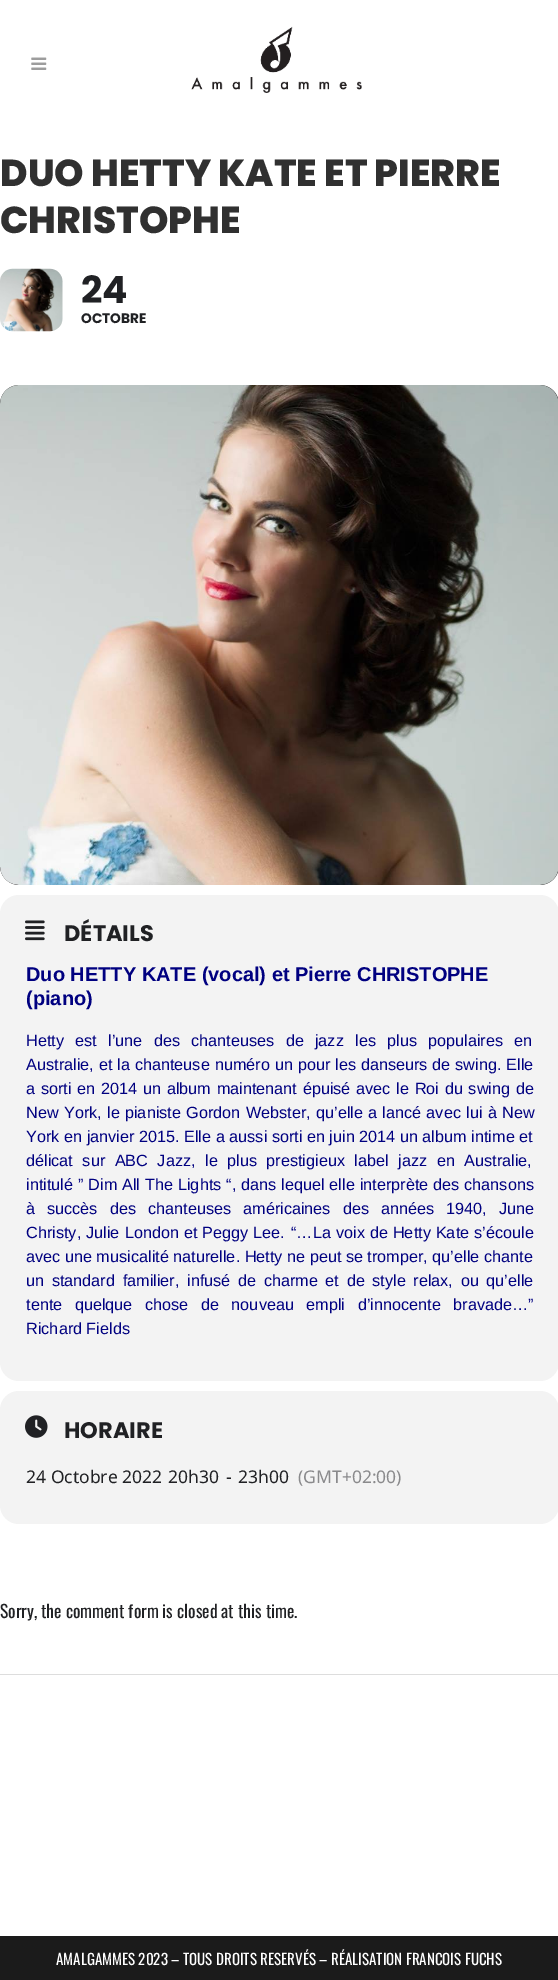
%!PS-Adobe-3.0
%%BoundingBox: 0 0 558 1980
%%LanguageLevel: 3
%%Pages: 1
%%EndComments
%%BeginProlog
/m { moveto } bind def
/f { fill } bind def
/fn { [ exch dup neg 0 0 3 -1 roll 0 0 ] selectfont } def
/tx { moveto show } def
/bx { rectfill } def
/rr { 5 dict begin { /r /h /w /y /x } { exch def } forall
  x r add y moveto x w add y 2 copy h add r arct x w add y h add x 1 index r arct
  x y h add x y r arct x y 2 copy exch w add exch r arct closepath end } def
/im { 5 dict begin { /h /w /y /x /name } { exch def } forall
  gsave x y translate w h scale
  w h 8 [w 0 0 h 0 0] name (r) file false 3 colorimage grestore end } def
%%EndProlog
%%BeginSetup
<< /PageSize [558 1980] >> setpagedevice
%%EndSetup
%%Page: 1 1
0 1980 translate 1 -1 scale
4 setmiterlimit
1 setgray
0 0 558 1980 bx
(image0.raw) 31 57 16 13 im
(image1.raw) 191 26 171 67 im
/Poppins-ExtraBold 37.5 fn
0.188 setgray
(DUO HETTY KATE ET PIERRE) 0 186 tx
(CHRISTOPHE) 0 233 tx
(image2.raw) 0 268 63 64 im
/Poppins-Bold 37.5 fn
0.125 0.129 0.141 setrgbcolor
(24) 81 303 tx
/Poppins-Bold 13.75 fn
(OCTOBRE) 81 323 tx
0.2 setgray
0 385 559 500 19 rr f
(image3.raw) 0 385 558 500 im
0.953 setgray
0 895 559 486 19 rr f
/Poppins-Bold 22.5 fn
0.125 0.129 0.141 setrgbcolor
(DÉTAILS) 64 941 tx
/LiberationSans-Bold 20 fn
0 0 0.502 setrgbcolor
(Duo HETTY KATE \(vocal\) et Pierre CHRISTOPHE) 26 981 tx
(\(piano\)) 26 1005 tx
/LiberationSans-Regular 16.25 fn
26 1046 m 6.75 0 32 (Hetty est l’une des chanteuses de jazz les plus populaires en) widthshow
26 1070 m 0.4 0 32 (Australie, et la chanteuse numéro un pour les danseurs de swing. Elle) widthshow
26 1094 m 1.2 0 32 (a sorti en 2014 un album maintenant épuisé avec le Roi du swing de) widthshow
26 1118 m 0.75 0 32 (New York, le pianiste Gordon Webster, qu’elle a lancé avec lui à New) widthshow
(York en janvier 2015. Elle a aussi sorti en juin 2014 un album intime et) 26 1142 tx
26 1166 m 5 0 32 (délicat sur ABC Jazz, le plus prestigieux label jazz en Australie,) widthshow
26 1190 m 0.4 0 32 (intitulé ” Dim All The Lights “, dans lequel elle interprète des chansons) widthshow
26 1214 m 7.5 0 32 (à succès des chanteuses américaines des années 1940, June) widthshow
26 1238 m 0.5 0 32 (Christy, Julie London et Peggy Lee.) widthshow
291 1238 m 0.5 0 32 (“…La voix de Hetty Kate s’écoule) widthshow
(avec une musicalité naturelle. Hetty ne peut se tromper, qu’elle chante) 26 1262 tx
26 1286 m 3.1 0 32 (un standard familier, infusé de charme et de style relax, ou qu’elle) widthshow
26 1310 m 8 0 32 (tente quelque chose de nouveau empli d’innocente bravade…”) widthshow
(Richard Fields) 26 1334 tx
(image4.raw) 25 920 20 21 im
0.953 setgray
0 1391 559 133 19 rr f
(image5.raw) 25 1415 23 23 im
/Poppins-Bold 22.5 fn
0.125 0.129 0.141 setrgbcolor
(HORAIRE) 64 1438 tx
/NotoSans-Regular 17.5 fn
(24 Octobre 2022) 26 1483 tx
(20h30) 168 1483 tx
(-) 226 1483 tx
(23h00) 238 1483 tx
0.541 0.541 0.549 setrgbcolor
(\(GMT+02:00\)) 298 1483 tx
/Oswald-Regular 17.5 fn
0.125 0.129 0.141 setrgbcolor
(Sorry, the comment form is closed at this time.) 0 1618 tx
0.867 setgray
0 1674 558 1 bx
0.106 setgray
0 1936 558 44 bx
/Oswald-Regular 15 fn
1 setgray
(AMALGAMMES 2023 – TOUS DROITS RESERVÉS – RÉALISATION FRANCOIS FUCHS) 56 1965 tx
showpage
%%EOF
